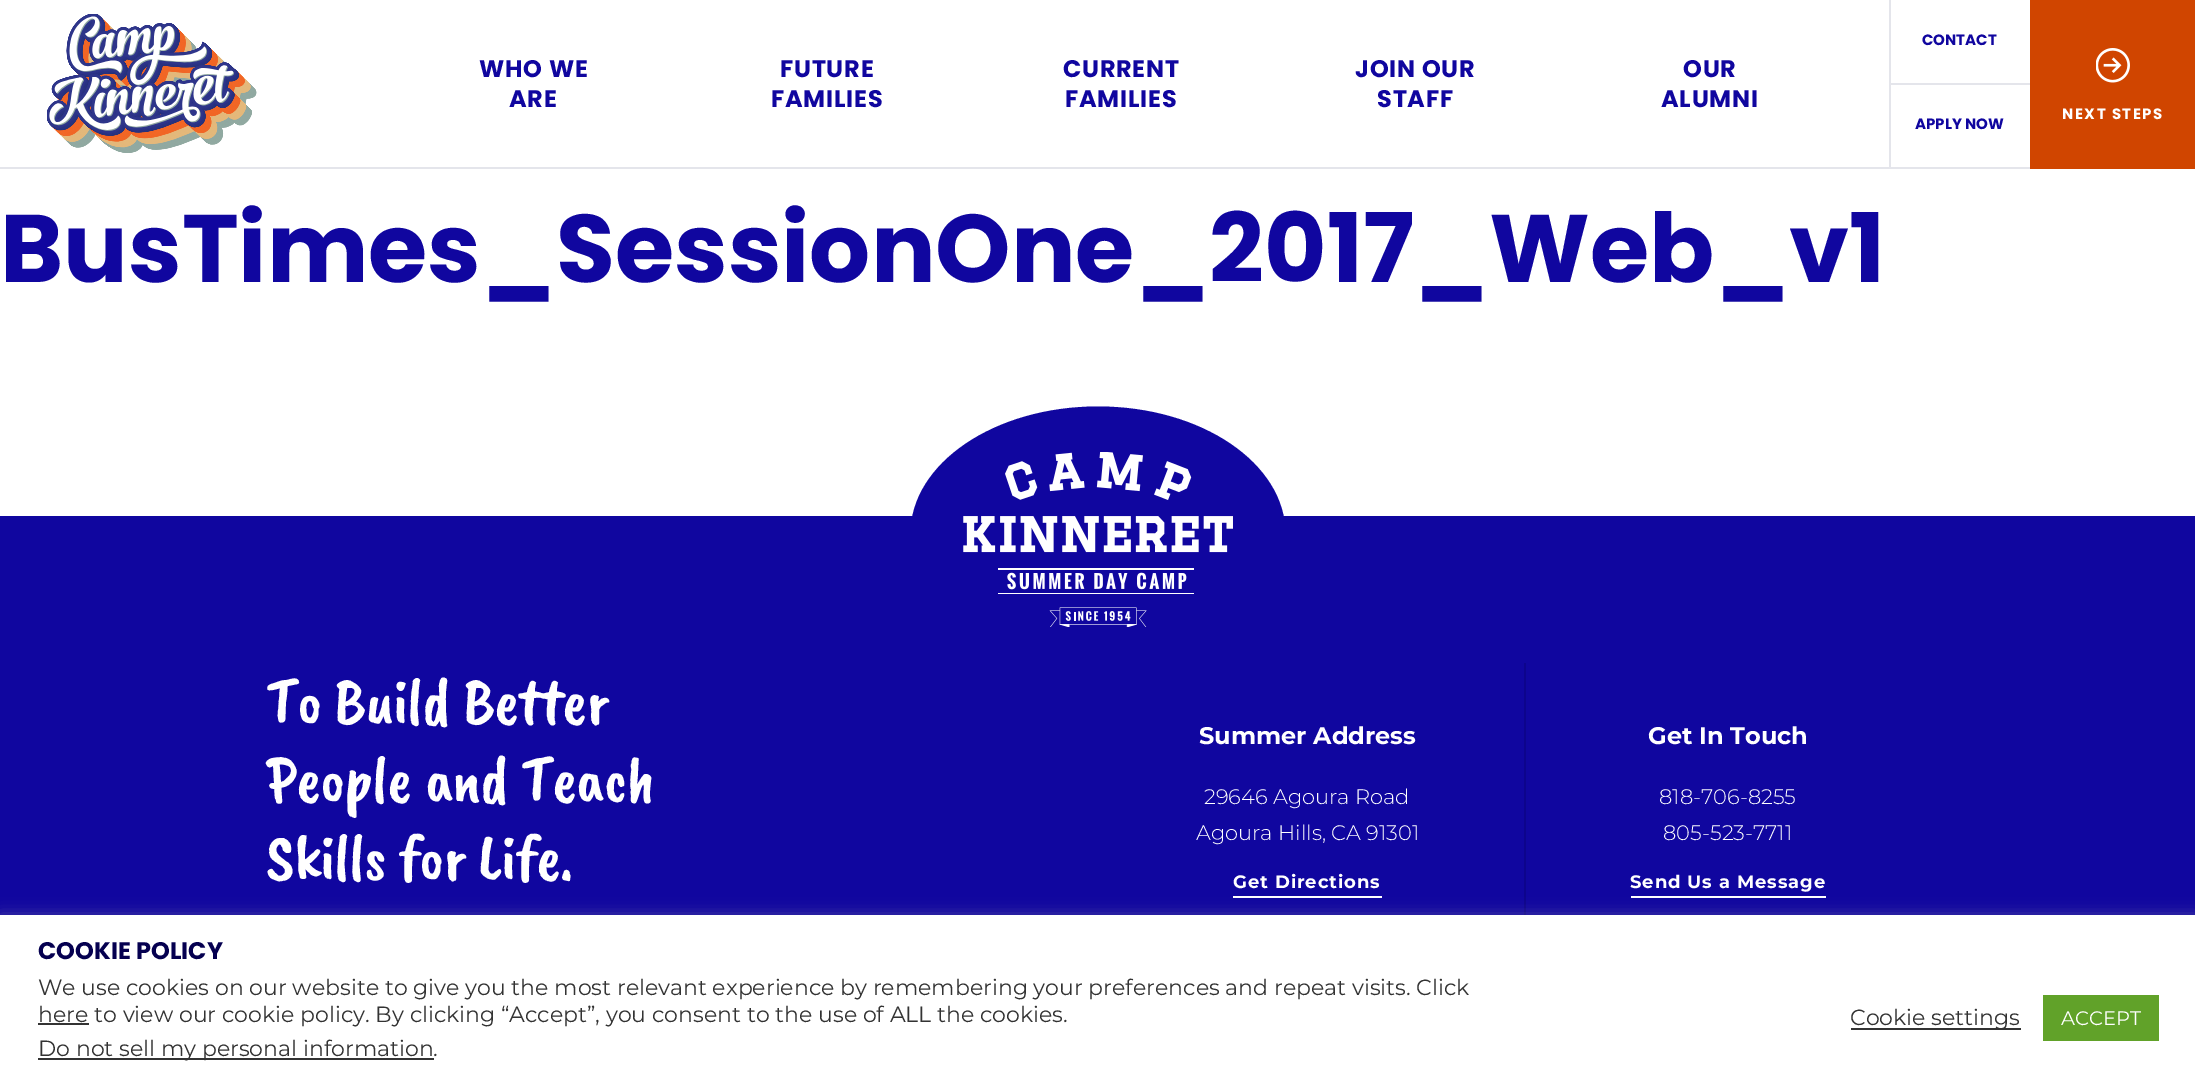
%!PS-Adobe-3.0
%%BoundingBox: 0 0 2195 1082
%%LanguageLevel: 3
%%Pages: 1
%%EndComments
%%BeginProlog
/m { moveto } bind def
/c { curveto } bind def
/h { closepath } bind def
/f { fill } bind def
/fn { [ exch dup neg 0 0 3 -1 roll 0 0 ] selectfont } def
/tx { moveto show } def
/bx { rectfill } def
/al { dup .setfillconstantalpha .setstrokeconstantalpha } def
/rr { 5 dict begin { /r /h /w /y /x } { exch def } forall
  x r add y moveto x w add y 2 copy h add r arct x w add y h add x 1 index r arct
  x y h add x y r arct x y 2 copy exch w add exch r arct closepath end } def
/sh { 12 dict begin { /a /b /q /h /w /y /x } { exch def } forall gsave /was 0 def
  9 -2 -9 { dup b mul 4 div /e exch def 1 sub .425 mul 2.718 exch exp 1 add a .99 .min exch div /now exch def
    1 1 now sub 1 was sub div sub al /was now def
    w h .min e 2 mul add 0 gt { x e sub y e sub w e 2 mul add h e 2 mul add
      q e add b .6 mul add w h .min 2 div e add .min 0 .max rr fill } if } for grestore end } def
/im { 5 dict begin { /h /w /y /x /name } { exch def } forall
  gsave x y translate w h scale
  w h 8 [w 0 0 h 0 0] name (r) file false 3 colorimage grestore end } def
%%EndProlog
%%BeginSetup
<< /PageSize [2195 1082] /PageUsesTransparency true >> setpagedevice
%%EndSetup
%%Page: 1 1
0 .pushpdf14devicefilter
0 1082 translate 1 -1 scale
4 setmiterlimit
1 setgray
0 0 2195 1082 bx
0.894 0.898 0.922 setrgbcolor
0 167 2030 2 bx
(image0.raw) 47 14 210 139 im
/Poppins-Bold 24 fn
0.063 0.024 0.624 setrgbcolor
479 77 m 0.75 0 (WHO WE) ashow
509 107 m 0.75 0 (ARE) ashow
780 77 m 0.75 0 (FUTURE) ashow
771 107 m 0.75 0 (FAMILIES) ashow
1063 77 m 0.75 0 (CURRENT) ashow
1065 107 m 0.75 0 (FAMILIES) ashow
1355 77 m 0.75 0 (JOIN OUR) ashow
1377 107 m 0.75 0 (STAFF) ashow
1683 77 m 0.75 0 (OUR) ashow
1661 107 m 0.75 0 (ALUMNI) ashow
0.894 0.898 0.922 setrgbcolor
1889 83 141 2 bx
1889 0 2 167 bx
/Poppins-Bold 15 fn
0.063 0.024 0.624 setrgbcolor
(CONTACT) 1922 45 tx
0.816 0.271 0 setrgbcolor
2030 0 165 169 bx
(image1.raw) 2096 48 34 35 im
1 setgray
2062 119 m 1.5 0 (NEXT STEPS) ashow
0.063 0.024 0.624 setrgbcolor
(APPLY NOW) 1915 129 tx
/Poppins-Bold 96 fn
(BusTimes_SessionOne_2017_Web_v1) 0 282 tx
0 516 2195 399 bx
1098 406.5 m 1201.5 406.5 1285.5 463.5 1285.5 534 c 1285.5 604.5 1201.5 661.5 1098 661.5 c 994.5 661.5 910.5 604.5 910.5 534 c 910.5 463.5 994.5 406.5 1098 406.5 c h f
(image2.raw) 963 452 270 175 im
/CaveatBrush-Regular 66 fn
1 setgray
266 723 m -0.9 0 (To Build Better) ashow
266 801 m -0.9 0 (People and Teach) ashow
266 879 m -0.9 0 (Skills for Life.) ashow
0.051 0.016 0.549 setrgbcolor
1524 663 2 252 bx
/Montserrat-Bold 24 fn
1 setgray
(Summer Address) 1199 744 tx
/Montserrat-Light 21 fn
(29646 Agoura Road) 1204 804 tx
(Agoura Hills, CA 91301) 1196 840 tx
1233 896 149 2 bx
/Montserrat-Bold 18 fn
1233 888 m 0.9 0 (Get Directions) ashow
/Montserrat-Bold 24 fn
(Get In Touch) 1648 744 tx
/Montserrat-Light 21 fn
(818-706-8255) 1659 804 tx
(805-523-7711) 1663 840 tx
1631 896 195 2 bx
/Montserrat-Bold 18 fn
1630 888 m 0.9 0 (Send Us a Message) ashow
0.675 0.671 0.671 setrgbcolor
0 914 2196 168 0 7.5 0.3 sh
1 setgray
0 915 2195 167 bx
/Poppins-Bold 24 fn
0.02 0 0.314 setrgbcolor
(COOKIE POLICY) 38 959 tx
/Montserrat-Regular 22 fn
0.2 setgray
(We use cookies on our website to give you the most relevant experience by remembering your preferences and repeat visits. Click) 38 995 tx
38 1023 51 2 bx
(here to view our cookie policy. By clicking “Accept”, you consent to the use of ALL the cookies.) 38 1022 tx
38 1058 396 2 bx
(Do not sell my personal information.) 38 1056 tx
1851 1028 170 2 bx
(Cookie settings) 1850 1025 tx
0.38 0.635 0.161 setrgbcolor
2043 995 116 46 bx
/Montserrat-Regular 19.5 fn
1 setgray
(ACCEPT) 2061 1025 tx
.poppdf14devicefilter showpage
%%EOF
